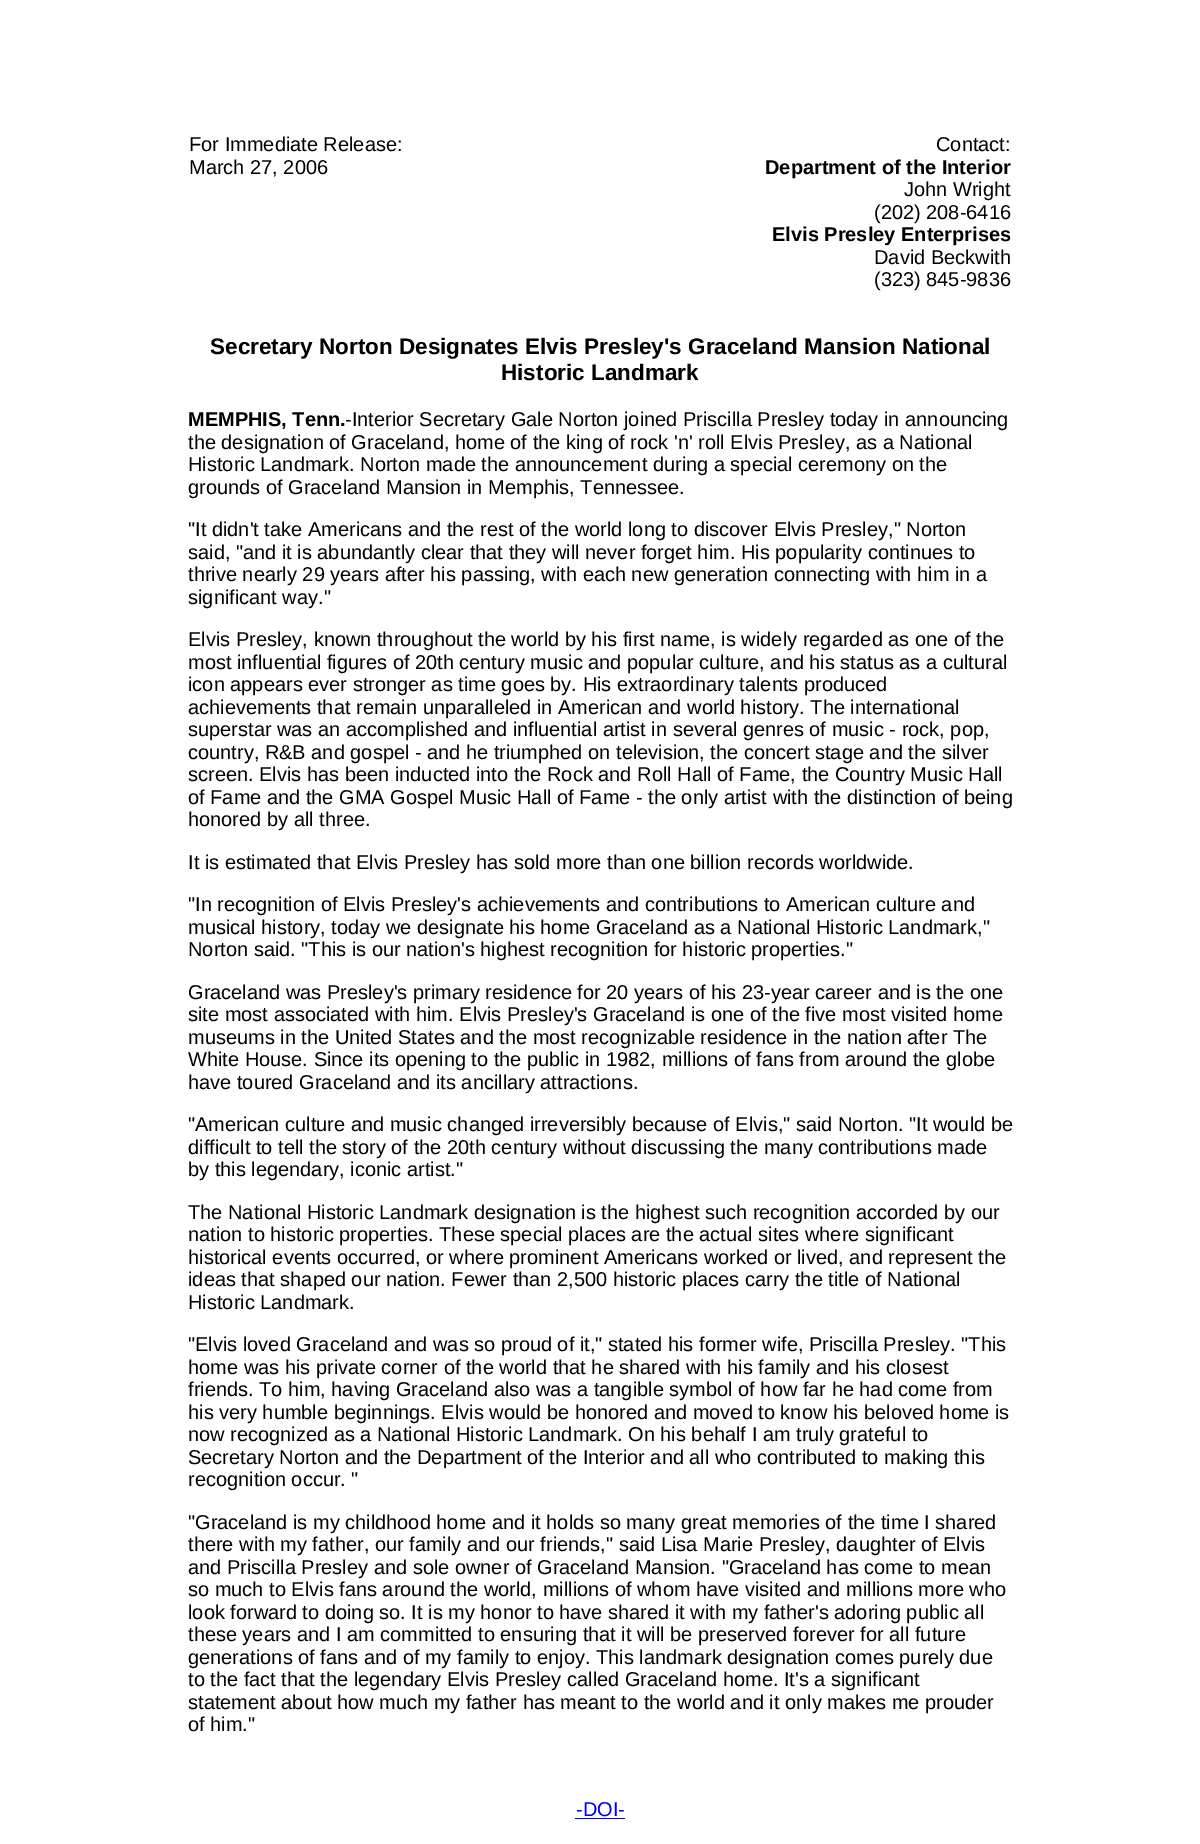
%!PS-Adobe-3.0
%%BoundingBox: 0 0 1200 1844
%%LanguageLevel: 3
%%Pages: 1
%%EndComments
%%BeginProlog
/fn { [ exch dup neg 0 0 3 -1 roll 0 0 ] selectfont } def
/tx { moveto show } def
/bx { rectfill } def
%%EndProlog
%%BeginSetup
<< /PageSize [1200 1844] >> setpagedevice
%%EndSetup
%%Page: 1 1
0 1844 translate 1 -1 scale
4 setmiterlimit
1 setgray
0 0 1200 1844 bx
/LiberationSans-Regular 20 fn
0 setgray
(For Immediate Release:) 189 151 tx
(March 27, 2006) 189 174 tx
(Contact:) 936 151 tx
/LiberationSans-Bold 20 fn
(Department of the Interior) 765 174 tx
/LiberationSans-Regular 20 fn
(John Wright) 904 196 tx
(\(202\) 208-6416) 874 219 tx
/LiberationSans-Bold 20 fn
(Elvis Presley Enterprises) 772 241 tx
/LiberationSans-Regular 20 fn
(David Beckwith) 874 264 tx
(\(323\) 845-9836) 874 286 tx
/LiberationSans-Bold 22.5 fn
(Secretary Norton Designates Elvis Presley's Graceland Mansion National) 210 354 tx
(Historic Landmark) 501 380 tx
/LiberationSans-Bold 20 fn
(MEMPHIS, Tenn.) 188 426 tx
/LiberationSans-Regular 20 fn
(-Interior Secretary Gale Norton joined Priscilla Presley today in announcing) 345 426 tx
(the designation of Graceland, home of the king of rock 'n' roll Elvis Presley, as a National) 188 449 tx
(Historic Landmark. Norton made the announcement during a special ceremony on the) 188 471 tx
(grounds of Graceland Mansion in Memphis, Tennessee.) 188 494 tx
("It didn't take Americans and the rest of the world long to discover Elvis Presley," Norton) 188 536 tx
(said, "and it is abundantly clear that they will never forget him. His popularity continues to) 188 559 tx
(thrive nearly 29 years after his passing, with each new generation connecting with him in a) 188 581 tx
(significant way.") 188 604 tx
(Elvis Presley, known throughout the world by his first name, is widely regarded as one of the) 188 646 tx
(most influential figures of 20th century music and popular culture, and his status as a cultural) 188 669 tx
(icon appears ever stronger as time goes by. His extraordinary talents produced) 188 691 tx
(achievements that remain unparalleled in American and world history. The international) 188 714 tx
(superstar was an accomplished and influential artist in several genres of music - rock, pop,) 188 736 tx
(country, R&B and gospel - and he triumphed on television, the concert stage and the silver) 188 759 tx
(screen. Elvis has been inducted into the Rock and Roll Hall of Fame, the Country Music Hall) 188 781 tx
(of Fame and the GMA Gospel Music Hall of Fame - the only artist with the distinction of being) 188 804 tx
(honored by all three.) 188 826 tx
(It is estimated that Elvis Presley has sold more than one billion records worldwide.) 188 869 tx
("In recognition of Elvis Presley's achievements and contributions to American culture and) 188 911 tx
(musical history, today we designate his home Graceland as a National Historic Landmark,") 188 934 tx
(Norton said. "This is our nation's highest recognition for historic properties.") 188 956 tx
(Graceland was Presley's primary residence for 20 years of his 23-year career and is the one) 188 999 tx
(site most associated with him. Elvis Presley's Graceland is one of the five most visited home) 188 1021 tx
(museums in the United States and the most recognizable residence in the nation after The) 188 1044 tx
(White House. Since its opening to the public in 1982, millions of fans from around the globe) 188 1066 tx
(have toured Graceland and its ancillary attractions.) 188 1089 tx
("American culture and music changed irreversibly because of Elvis," said Norton. "It would be) 188 1131 tx
(difficult to tell the story of the 20th century without discussing the many contributions made) 188 1154 tx
(by this legendary, iconic artist.") 188 1176 tx
(The National Historic Landmark designation is the highest such recognition accorded by our) 188 1219 tx
(nation to historic properties. These special places are the actual sites where significant) 188 1241 tx
(historical events occurred, or where prominent Americans worked or lived, and represent the) 188 1264 tx
(ideas that shaped our nation. Fewer than 2,500 historic places carry the title of National) 188 1286 tx
(Historic Landmark.) 188 1309 tx
("Elvis loved Graceland and was so proud of it," stated his former wife, Priscilla Presley. "This) 188 1351 tx
(home was his private corner of the world that he shared with his family and his closest) 188 1374 tx
(friends. To him, having Graceland also was a tangible symbol of how far he had come from) 188 1396 tx
(his very humble beginnings. Elvis would be honored and moved to know his beloved home is) 188 1419 tx
(now recognized as a National Historic Landmark. On his behalf I am truly grateful to) 188 1441 tx
(Secretary Norton and the Department of the Interior and all who contributed to making this) 188 1464 tx
(recognition occur. ") 188 1486 tx
("Graceland is my childhood home and it holds so many great memories of the time I shared) 188 1529 tx
(there with my father, our family and our friends," said Lisa Marie Presley, daughter of Elvis) 188 1551 tx
(and Priscilla Presley and sole owner of Graceland Mansion. "Graceland has come to mean) 188 1574 tx
(so much to Elvis fans around the world, millions of whom have visited and millions more who) 188 1596 tx
(look forward to doing so. It is my honor to have shared it with my father's adoring public all) 188 1619 tx
(these years and I am committed to ensuring that it will be preserved forever for all future) 188 1641 tx
(generations of fans and of my family to enjoy. This landmark designation comes purely due) 188 1664 tx
(to the fact that the legendary Elvis Presley called Graceland home. It's a significant) 188 1686 tx
(statement about how much my father has meant to the world and it only makes me prouder) 188 1709 tx
(of him.") 188 1731 tx
0 0 0.933 setrgbcolor
(-DOI-) 576 1816 tx
575 1818 50 1 bx
showpage
%%EOF
